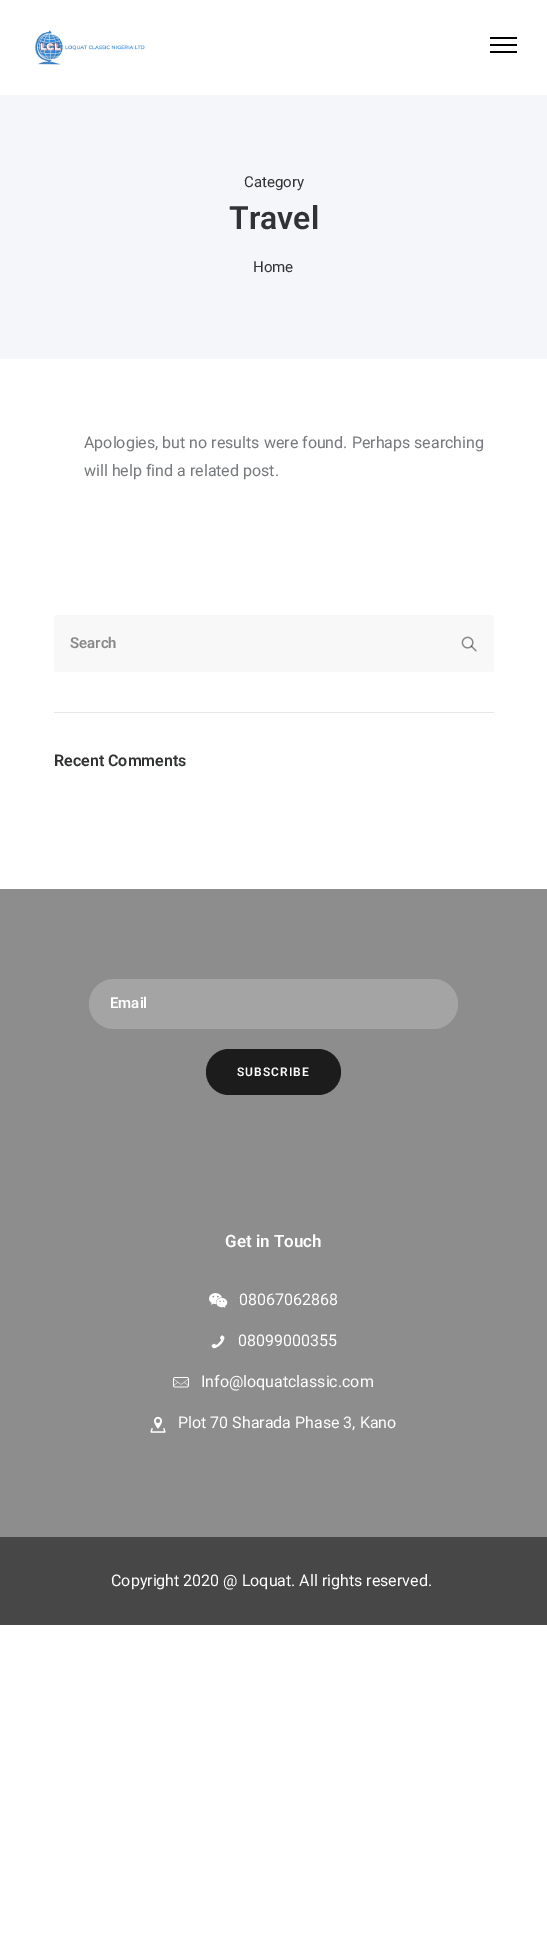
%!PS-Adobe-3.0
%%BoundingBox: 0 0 547 1940
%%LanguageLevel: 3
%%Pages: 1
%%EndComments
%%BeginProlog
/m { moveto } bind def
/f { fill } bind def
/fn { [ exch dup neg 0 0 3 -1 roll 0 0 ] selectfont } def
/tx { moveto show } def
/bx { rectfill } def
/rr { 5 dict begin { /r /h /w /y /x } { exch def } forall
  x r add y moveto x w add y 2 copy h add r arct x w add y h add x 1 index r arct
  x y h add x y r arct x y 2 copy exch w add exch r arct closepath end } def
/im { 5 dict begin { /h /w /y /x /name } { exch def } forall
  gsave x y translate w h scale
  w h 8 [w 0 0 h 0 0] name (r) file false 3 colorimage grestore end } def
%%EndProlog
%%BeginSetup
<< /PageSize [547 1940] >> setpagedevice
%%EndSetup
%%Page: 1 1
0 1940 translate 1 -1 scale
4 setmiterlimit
1 setgray
0 0 547 1940 bx
(image0.raw) 34 30 111 35 im
0 setgray
490 37 27 2 bx
490 44 27 2 bx
490 51 27 2 bx
0.961 0.965 0.98 setrgbcolor
0 95 547 264 bx
/Roboto-Regular 15 fn
0.192 0.196 0.2 setrgbcolor
(Category) 244 187 tx
/Roboto-SemiBold 32 fn
(Travel) 229 229 tx
/Roboto-Regular 15 fn
(Home) 253 272 tx
/Roboto-Regular 16 fn
0.467 0.475 0.49 setrgbcolor
(Apologies, but no results were found. Perhaps searching) 84 448 tx
(will help find a related post.) 84 476 tx
0.906 setgray
54 712 440 1 bx
0.973 setgray
54 615 440 57 3 rr f
/Roboto-SemiBold 15 fn
0.533 setgray
(Search) 70 648 tx
(image1.raw) 461 636 16 16 im
/Roboto-SemiBold 16 fn
0.192 0.196 0.2 setrgbcolor
(Recent Comments) 54 766 tx
0.553 setgray
0 889 547 648 bx
0.643 setgray
89 979 369 50 25 rr f
/Roboto-SemiBold 15 fn
1 setgray
(Email) 110 1008 tx
0.11 setgray
206 1049 135 46 23 rr f
/Roboto-SemiBold 12 fn
1 setgray
237 1076 m 1 0 (SUBSCRIBE) ashow
/Roboto-SemiBold 17 fn
(Get in Touch) 225 1247 tx
(image2.raw) 209 1293 19 15 im
/Roboto-Regular 16 fn
(08067062868) 239 1305 tx
(image3.raw) 211 1335 14 14 im
(08099000355) 238 1346 tx
(image4.raw) 173 1377 16 11 im
(Info@loquatclassic.com) 201 1387 tx
(image5.raw) 150 1416 16 17 im
(Plot 70 Sharada Phase 3, Kano) 178 1428 tx
0.278 setgray
0 1537 547 88 bx
1 setgray
(Copyright 2020 @ Loquat. All rights reserved.) 111 1586 tx
showpage
%%EOF
